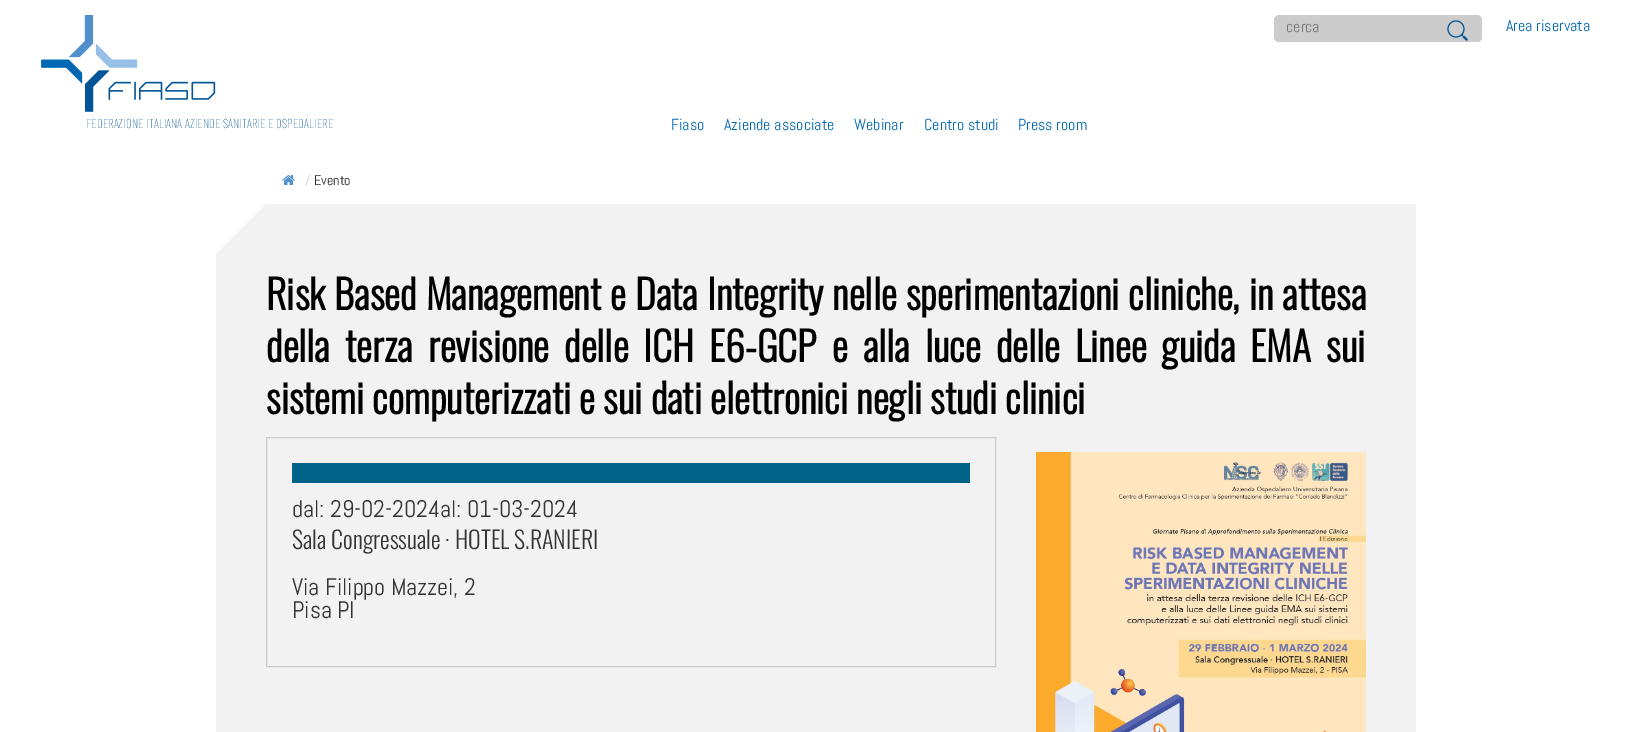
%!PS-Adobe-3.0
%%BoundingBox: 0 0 1631 732
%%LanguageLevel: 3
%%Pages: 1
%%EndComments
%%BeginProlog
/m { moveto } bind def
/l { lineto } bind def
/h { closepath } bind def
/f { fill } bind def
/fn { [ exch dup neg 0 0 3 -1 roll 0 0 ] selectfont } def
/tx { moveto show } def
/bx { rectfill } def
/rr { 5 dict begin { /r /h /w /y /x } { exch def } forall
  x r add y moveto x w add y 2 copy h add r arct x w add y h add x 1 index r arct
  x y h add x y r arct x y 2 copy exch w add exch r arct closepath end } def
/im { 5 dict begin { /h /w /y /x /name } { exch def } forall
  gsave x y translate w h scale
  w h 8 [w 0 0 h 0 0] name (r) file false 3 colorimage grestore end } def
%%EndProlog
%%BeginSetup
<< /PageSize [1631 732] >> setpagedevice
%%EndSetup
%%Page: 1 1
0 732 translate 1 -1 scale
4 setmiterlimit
1 setgray
0 0 1631 732 bx
(image0.raw) 41 15 175 97 im
0.8 setgray
1274 15 208 27 5 rr f
/Abel-Regular 16 fn
0.459 setgray
(cerca) 1286 32 tx
(image1.raw) 1447 20 21 21 im
0 0.408 0.702 setrgbcolor
(Area riservata) 1506 31 tx
/BarlowCondensed-Thin 13 fn
0 0.333 0.588 setrgbcolor
(FEDERAZIONE ITALIANA AZIENDE SANITARIE E OSPEDALIERE) 86 128 tx
/Abel-Regular 16 fn
0 0.408 0.702 setrgbcolor
(Fiaso) 671 130 tx
(Aziende associate) 724 130 tx
(Webinar) 854 130 tx
(Centro studi) 924 130 tx
(Press room) 1018 130 tx
(image2.raw) 282 175 13 10 im
/Abel-Regular 14 fn
0.8 setgray
(/) 305 185 tx
0.153 0.153 0.165 setrgbcolor
(Evento) 314 185 tx
0.949 setgray
216 204 1200 528 bx
1 setgray
216 254 m 216 204 l 266 204 l h f
/Oswald-Bold 40 fn
0 setgray
266 310 m 1 0 32 (Risk Based Management e Data Integrity nelle sperimentazioni cliniche, in attesa) widthshow
266 362 m 6.9 0 32 (della terza revisione delle ICH E6-GCP e alla luce delle Linee guida EMA sui) widthshow
(sistemi computerizzati e sui dati elettronici negli studi clinici) 266 414 tx
0.8 setgray
266.5 437.5 729 229 rectstroke
0.008 0.388 0.541 setrgbcolor
292 463 678 20 bx
/Abel-Regular 24 fn
0.2 setgray
(dal: 29-02-2024al: 01-03-2024) 292 517 tx
/Oswald-Light 24 fn
(Sala Congressuale · HOTEL S.RANIERI) 292 549 tx
/Abel-Regular 24 fn
(Via Filippo Mazzei, 2) 292 595 tx
(Pisa PI) 292 618 tx
(image3.raw) 1036 452 330 280 im
showpage
%%EOF
